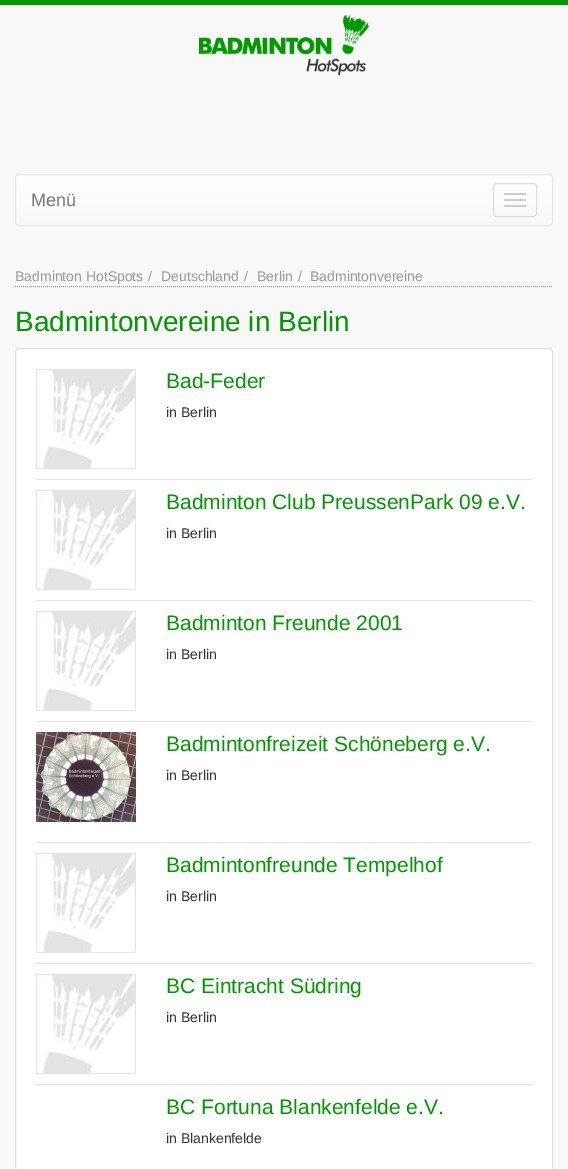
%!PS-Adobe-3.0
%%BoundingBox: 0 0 568 1169
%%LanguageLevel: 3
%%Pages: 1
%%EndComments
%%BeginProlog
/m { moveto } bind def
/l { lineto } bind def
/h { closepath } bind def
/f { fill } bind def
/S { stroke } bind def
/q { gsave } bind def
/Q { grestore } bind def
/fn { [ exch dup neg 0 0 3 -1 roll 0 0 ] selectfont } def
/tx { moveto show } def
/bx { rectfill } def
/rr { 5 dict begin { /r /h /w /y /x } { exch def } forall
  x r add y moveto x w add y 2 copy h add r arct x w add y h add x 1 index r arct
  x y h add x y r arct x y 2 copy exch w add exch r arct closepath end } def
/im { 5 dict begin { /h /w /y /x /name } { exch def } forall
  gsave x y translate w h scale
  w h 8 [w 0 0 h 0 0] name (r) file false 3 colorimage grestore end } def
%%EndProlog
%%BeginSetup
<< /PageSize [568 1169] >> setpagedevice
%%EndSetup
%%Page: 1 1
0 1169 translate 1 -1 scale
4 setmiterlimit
0.976 setgray
0 0 568 1169 bx
0 0.592 0 setrgbcolor
0 0 568 5 bx
(image0.raw) 199 15 170 60 im
q
15 174 538 52 4 rr clip newpath
q 15 175 m 553 175 l 553 225 l 15 225 l h clip newpath
<< /ShadingType 2 /ColorSpace /DeviceRGB /Coords [284 175 284 225] /Extend [true true] /Function << /FunctionType 2 /Domain [0 1] /C0 [1 1 1] /C1 [0.973 0.973 0.973] /N 1 >> >> shfill Q
Q
0.906 setgray
15.5 174.5 537 51 3.5 rr S
/LiberationSans-Regular 18 fn
0.467 setgray
(Menü) 31 206 tx
0.867 setgray
493.5 183.5 43 33 3.5 rr S
0.8 setgray
504 193 22 2 1 rr f
504 199 22 2 1 rr f
504 205 22 2 1 rr f
0.6 setgray
[1 1] 0 setdash
15 286.5 m 553 286.5 l S
/LiberationSans-Regular 14 fn
(Badminton HotSpots) 15 281 tx
(/) 148 281 tx
(Deutschland) 161 281 tx
(/) 244 281 tx
(Berlin) 257 281 tx
(/) 298 281 tx
(Badmintonvereine) 310 281 tx
/LiberationSans-Regular 28 fn
0 0.592 0 setrgbcolor
(Badmintonvereine in Berlin) 15 331 tx
1 setgray
15.5 348.5 537 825 3.5 rr q f Q
0.875 setgray
[] 0 setdash
S
(image1.raw) 36 369 100 100 im
/LiberationSans-Regular 21 fn
0 0.592 0 setrgbcolor
(Bad-Feder) 166 388 tx
/LiberationSans-Regular 14 fn
0.2 setgray
(in Berlin) 166 417 tx
0.89 setgray
36 479 496 1 bx
(image1.raw) 36 490 100 100 im
/LiberationSans-Regular 21 fn
0 0.592 0 setrgbcolor
(Badminton Club PreussenPark 09 e.V.) 166 509 tx
/LiberationSans-Regular 14 fn
0.2 setgray
(in Berlin) 166 538 tx
0.89 setgray
36 600 496 1 bx
(image1.raw) 36 611 100 100 im
/LiberationSans-Regular 21 fn
0 0.592 0 setrgbcolor
(Badminton Freunde 2001) 166 630 tx
/LiberationSans-Regular 14 fn
0.2 setgray
(in Berlin) 166 659 tx
0.89 setgray
36 721 496 1 bx
(image2.raw) 36 732 100 90 im
/LiberationSans-Regular 21 fn
0 0.592 0 setrgbcolor
(Badmintonfreizeit Schöneberg e.V.) 166 751 tx
/LiberationSans-Regular 14 fn
0.2 setgray
(in Berlin) 166 780 tx
0.89 setgray
36 842 496 1 bx
(image1.raw) 36 853 100 100 im
/LiberationSans-Regular 21 fn
0 0.592 0 setrgbcolor
(Badmintonfreunde Tempelhof) 166 872 tx
/LiberationSans-Regular 14 fn
0.2 setgray
(in Berlin) 166 901 tx
0.89 setgray
36 963 496 1 bx
(image1.raw) 36 974 100 100 im
/LiberationSans-Regular 21 fn
0 0.592 0 setrgbcolor
(BC Eintracht Südring) 166 993 tx
/LiberationSans-Regular 14 fn
0.2 setgray
(in Berlin) 166 1022 tx
0.89 setgray
36 1084 496 1 bx
/LiberationSans-Regular 21 fn
0 0.592 0 setrgbcolor
(BC Fortuna Blankenfelde e.V.) 166 1114 tx
/LiberationSans-Regular 14 fn
0.2 setgray
(in Blankenfelde) 166 1143 tx
showpage
%%EOF
